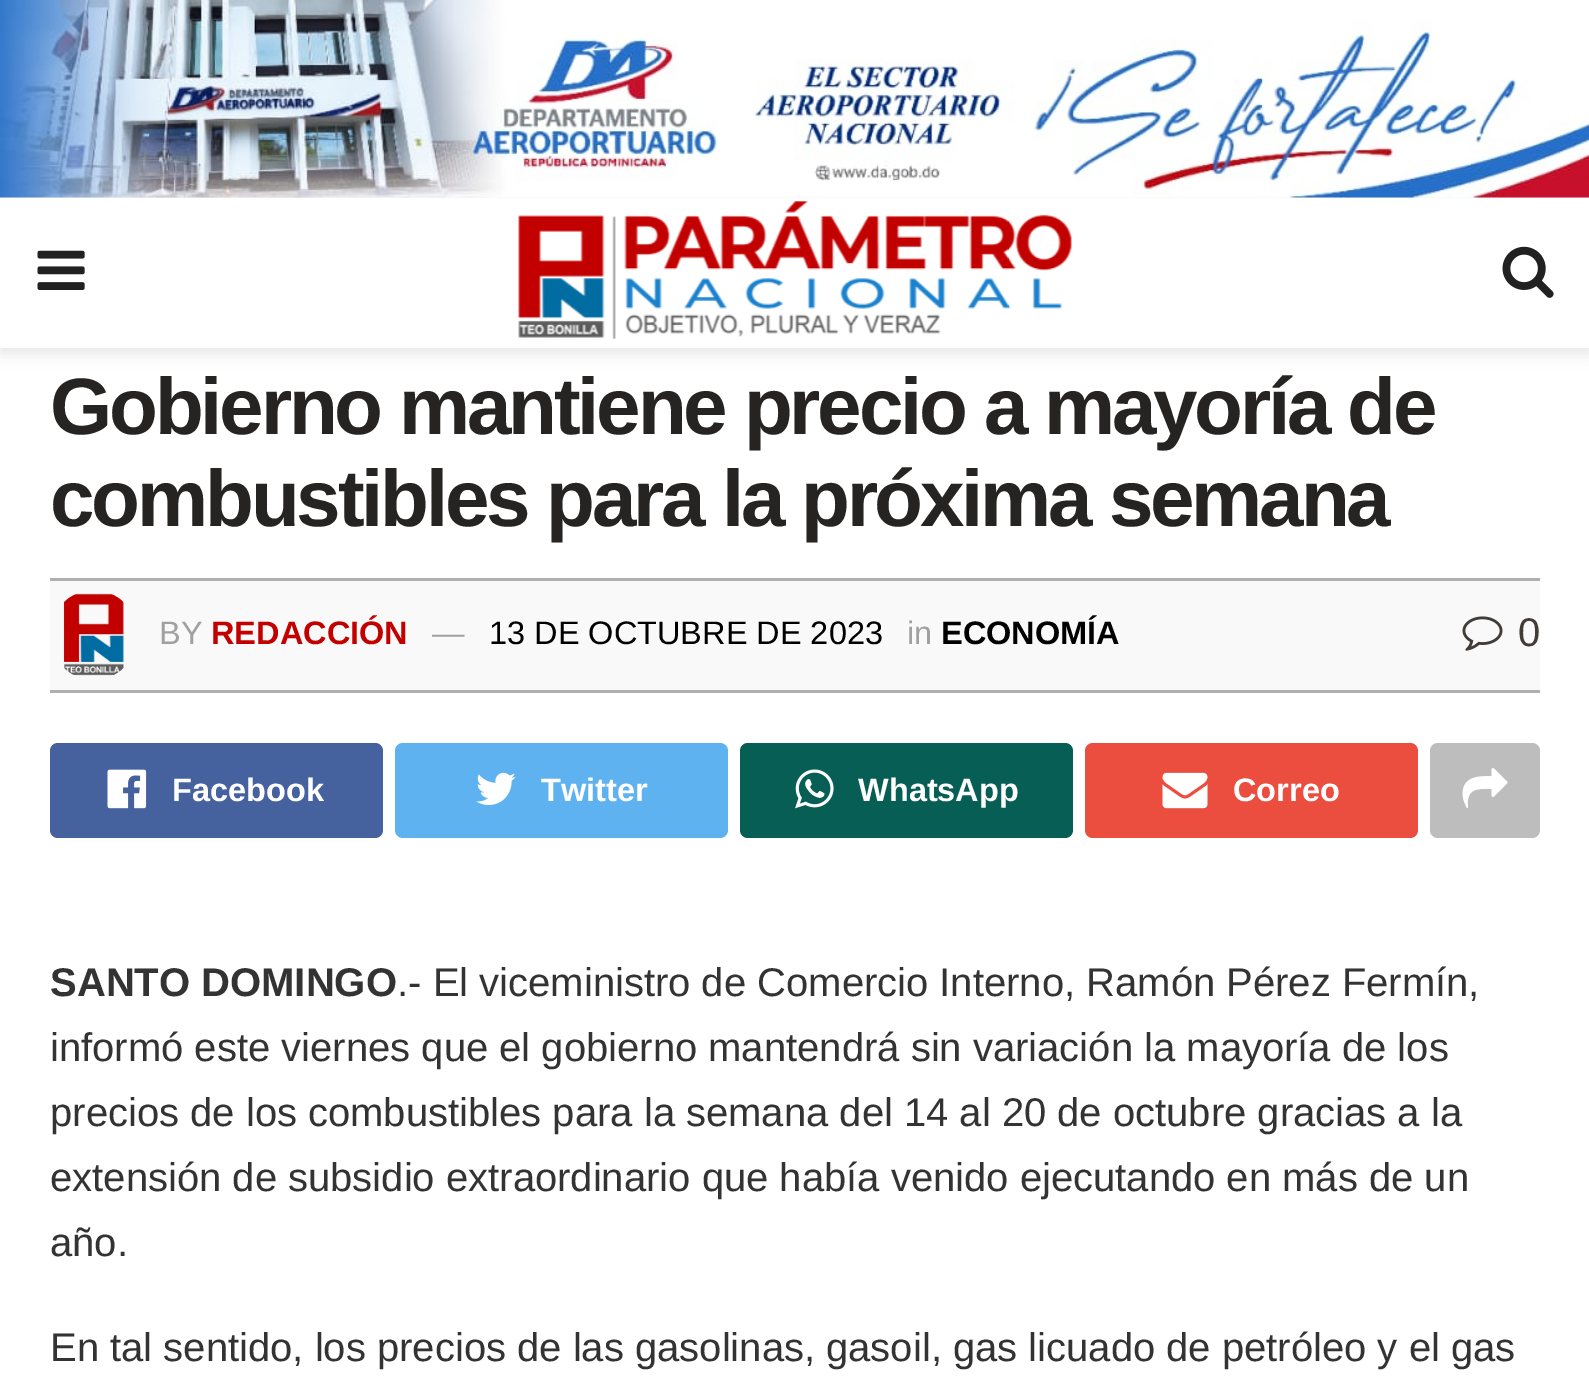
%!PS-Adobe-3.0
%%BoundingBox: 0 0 1589 1393
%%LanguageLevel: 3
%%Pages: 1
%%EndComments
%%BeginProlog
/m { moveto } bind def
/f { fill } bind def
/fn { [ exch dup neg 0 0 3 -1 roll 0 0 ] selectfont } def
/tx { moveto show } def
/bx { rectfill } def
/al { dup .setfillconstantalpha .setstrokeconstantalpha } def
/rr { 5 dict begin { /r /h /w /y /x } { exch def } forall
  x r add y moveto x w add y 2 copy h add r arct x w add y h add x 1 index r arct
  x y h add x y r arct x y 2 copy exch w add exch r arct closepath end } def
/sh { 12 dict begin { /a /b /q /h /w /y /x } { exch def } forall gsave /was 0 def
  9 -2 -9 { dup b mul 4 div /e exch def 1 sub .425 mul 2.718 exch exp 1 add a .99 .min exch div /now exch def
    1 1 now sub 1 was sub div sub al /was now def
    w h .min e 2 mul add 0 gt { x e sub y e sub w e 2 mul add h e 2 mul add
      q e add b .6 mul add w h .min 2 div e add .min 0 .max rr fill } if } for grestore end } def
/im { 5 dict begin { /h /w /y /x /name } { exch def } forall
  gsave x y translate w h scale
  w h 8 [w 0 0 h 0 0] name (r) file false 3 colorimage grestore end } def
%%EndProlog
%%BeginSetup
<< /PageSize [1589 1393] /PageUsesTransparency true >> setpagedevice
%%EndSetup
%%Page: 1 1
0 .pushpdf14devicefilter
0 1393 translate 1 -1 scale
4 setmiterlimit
1 setgray
0 0 1589 1393 bx
0 setgray
0 203 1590 150 0 7.5 0.1 sh
0.961 setgray
0 197 1589 1 bx
(image0.raw) 0 0 1589 198 im
1 setgray
0 198 1589 150 bx
(image1.raw) 37 250 48 40 im
(image2.raw) 518 201 554 138 im
(image3.raw) 1502 246 52 52 im
/LiberationSans-Bold 80 fn
0.145 0.141 0.133 setrgbcolor
50 434 m -3.2 0 (Gobierno mantiene precio a mayoría de) ashow
50 526 m -3.2 0 (combustibles para la próxima semana) ashow
0.976 setgray
50 581 1490 109 bx
0.686 setgray
50 578 1490 3 bx
50 690 1490 3 bx
(image4.raw) 63 593 61 83 im
/LiberationSans-Regular 32.5 fn
0.627 setgray
(BY) 159 644 tx
/LiberationSans-Bold 32.5 fn
0.761 0 0 setrgbcolor
(REDACCIÓN) 211 644 tx
/LiberationSans-Regular 32.5 fn
0.627 setgray
(—) 432 644 tx
0 setgray
(13 DE OCTUBRE DE 2023) 489 644 tx
0.627 setgray
(in) 907 644 tx
/LiberationSans-Bold 32.5 fn
0 setgray
(ECONOMÍA) 941 644 tx
(image5.raw) 1462 616 41 35 im
/LiberationSans-Regular 40 fn
0.251 0.239 0.224 setrgbcolor
(0) 1518 646 tx
0.271 0.384 0.624 setrgbcolor
50 743 333 95 8 rr f
(image6.raw) 107 769 40 40 im
/LiberationSans-Bold 32.5 fn
1 setgray
(Facebook) 172 801 tx
0.369 0.698 0.937 setrgbcolor
395 743 333 95 8 rr f
(image7.raw) 476 772 40 33 im
1 setgray
(Twitter) 541 801 tx
0.027 0.369 0.329 setrgbcolor
740 743 333 95 8 rr f
(image8.raw) 795 769 39 40 im
1 setgray
(WhatsApp) 858 801 tx
0.922 0.302 0.247 setrgbcolor
1085 743 333 95 8 rr f
(image9.raw) 1162 772 46 37 im
1 setgray
(Correo) 1233 801 tx
0.741 setgray
1430 743 110 95 8 rr f
(image10.raw) 1462 768 46 41 im
/LiberationSans-Bold 40 fn
0.2 setgray
(SANTO DOMINGO) 50 996 tx
/LiberationSans-Regular 40 fn
(.- El viceministro de Comercio Interno, Ramón Pérez Fermín,) 397 996 tx
(informó este viernes que el gobierno mantendrá sin variación la mayoría de los) 50 1061 tx
(precios de los combustibles para la semana del 14 al 20 de octubre gracias a la) 50 1126 tx
(extensión de subsidio extraordinario que había venido ejecutando en más de un) 50 1191 tx
(año.) 50 1256 tx
(En tal sentido, los precios de las gasolinas, gasoil, gas licuado de petróleo y el gas) 50 1361 tx
.poppdf14devicefilter showpage
%%EOF
